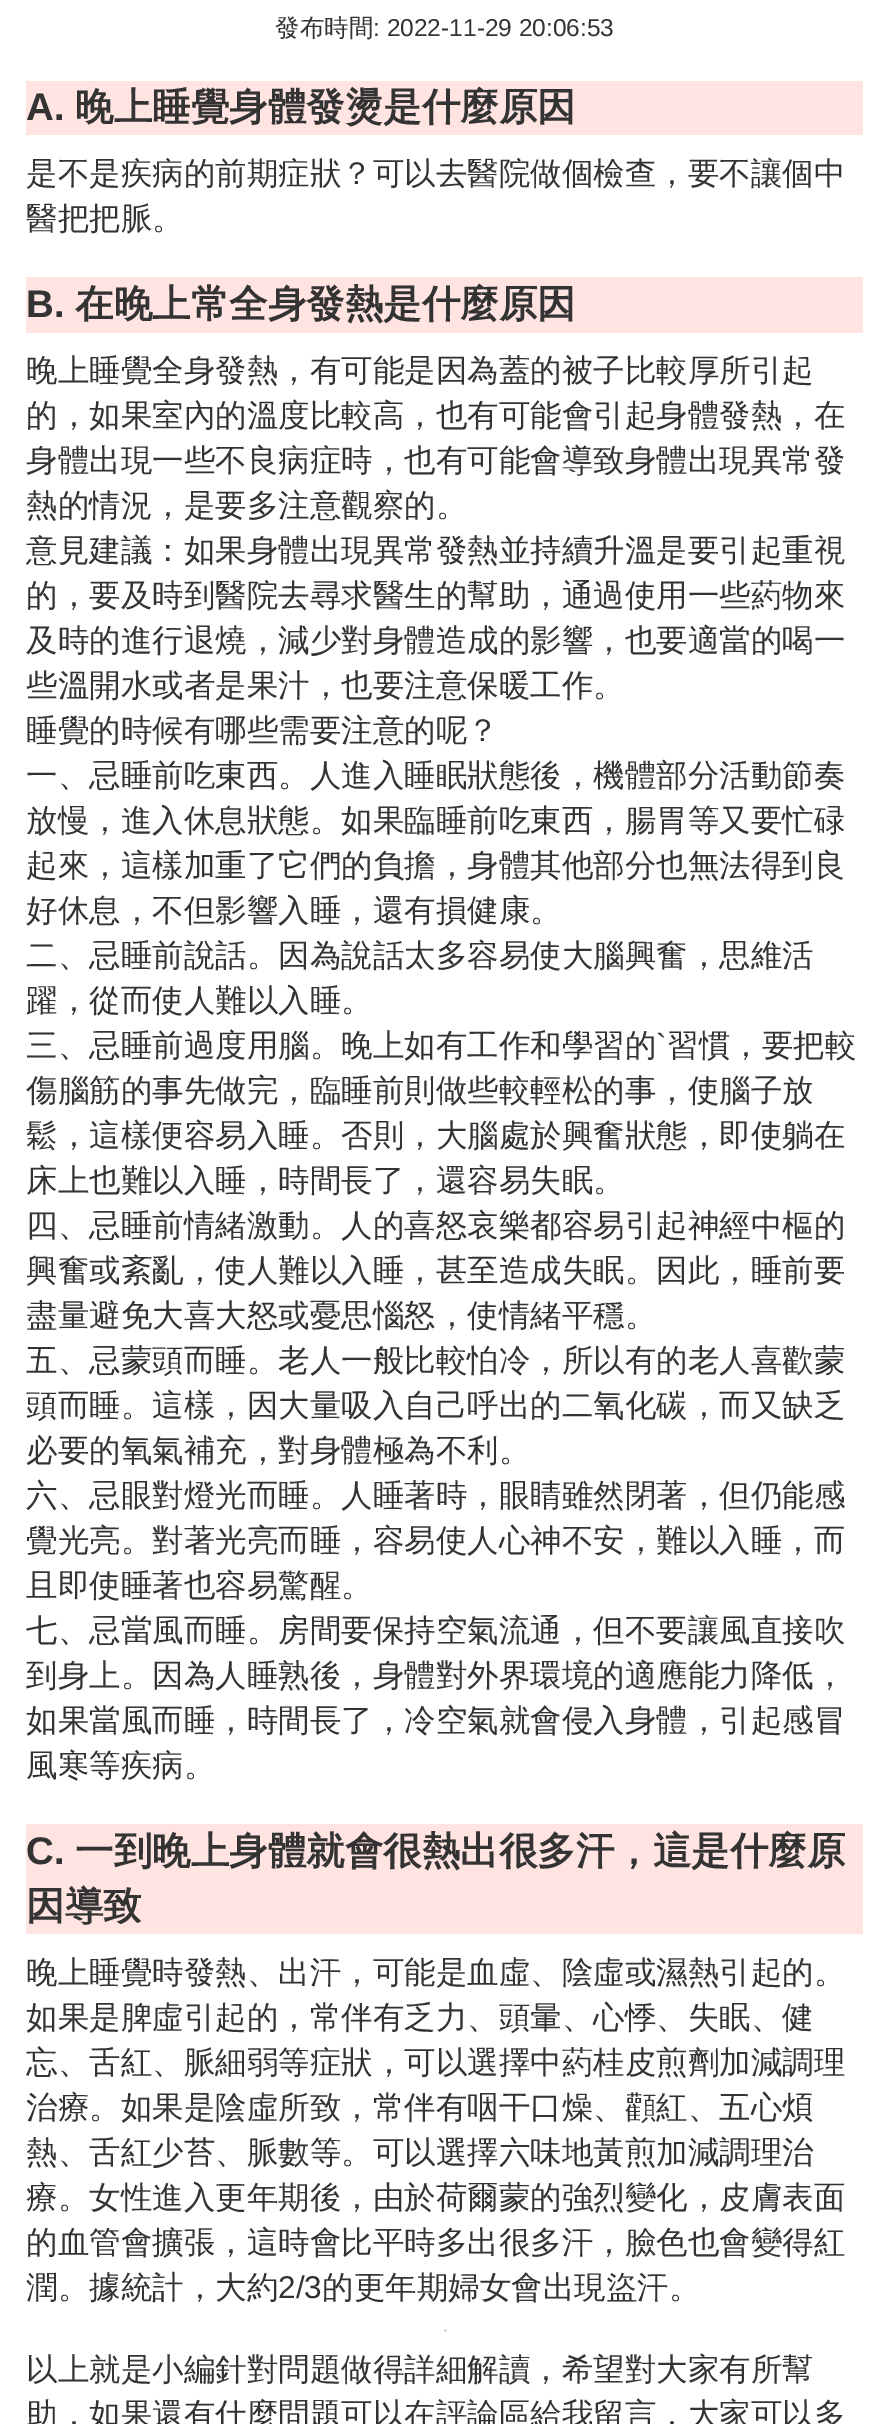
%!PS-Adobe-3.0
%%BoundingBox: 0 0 889 2424
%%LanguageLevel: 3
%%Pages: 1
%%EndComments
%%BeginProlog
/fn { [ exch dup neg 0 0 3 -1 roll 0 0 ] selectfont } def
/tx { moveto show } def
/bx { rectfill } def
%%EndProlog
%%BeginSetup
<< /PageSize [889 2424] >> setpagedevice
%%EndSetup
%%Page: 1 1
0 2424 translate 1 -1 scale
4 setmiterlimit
1 setgray
0 0 889 2424 bx
/WenQuanYiZenHei-Medium 24.5 fn
0.2 setgray
(發布時間) 275 36 tx
/LiberationSans-Regular 24.5 fn
(: 2022-11-29 20:06:53) 373 36 tx
1 0.894 0.882 setrgbcolor
26 81 837 54 bx
/LiberationSans-Bold 38.5 fn
0.2 setgray
(A.) 26 120 tx
/WenQuanYiZenHei-Bold 38.5 fn
(晚上睡覺身體發燙是什麼原因) 75 120 tx
/WenQuanYiZenHei-Medium 31.5 fn
(是不是疾病的前期症狀？可以去醫院做個檢查，要不讓個中) 26 184 tx
(醫把把脈。) 26 229 tx
1 0.894 0.882 setrgbcolor
26 277 837 56 bx
/LiberationSans-Bold 38.5 fn
0.2 setgray
(B.) 26 317 tx
/WenQuanYiZenHei-Bold 38.5 fn
(在晚上常全身發熱是什麼原因) 75 317 tx
/WenQuanYiZenHei-Medium 31.5 fn
(晚上睡覺全身發熱，有可能是因為蓋的被子比較厚所引起) 26 381 tx
(的，如果室內的溫度比較高，也有可能會引起身體發熱，在) 26 426 tx
(身體出現一些不良病症時，也有可能會導致身體出現異常發) 26 471 tx
(熱的情況，是要多注意觀察的。) 26 516 tx
(意見建議：如果身體出現異常發熱並持續升溫是要引起重視) 26 561 tx
(的，要及時到醫院去尋求醫生的幫助，通過使用一些葯物來) 26 606 tx
(及時的進行退燒，減少對身體造成的影響，也要適當的喝一) 26 651 tx
(些溫開水或者是果汁，也要注意保暖工作。) 26 696 tx
(睡覺的時候有哪些需要注意的呢？) 26 741 tx
(一、忌睡前吃東西。人進入睡眠狀態後，機體部分活動節奏) 26 786 tx
(放慢，進入休息狀態。如果臨睡前吃東西，腸胃等又要忙碌) 26 831 tx
(起來，這樣加重了它們的負擔，身體其他部分也無法得到良) 26 876 tx
(好休息，不但影響入睡，還有損健康。) 26 921 tx
(二、忌睡前說話。因為說話太多容易使大腦興奮，思維活) 26 966 tx
(躍，從而使人難以入睡。) 26 1011 tx
(三、忌睡前過度用腦。晚上如有工作和學習的) 26 1056 tx
/LiberationSans-Regular 31.5 fn
(`) 656 1056 tx
/WenQuanYiZenHei-Medium 31.5 fn
(習慣，要把較) 667 1056 tx
(傷腦筋的事先做完，臨睡前則做些較輕松的事，使腦子放) 26 1101 tx
(鬆，這樣便容易入睡。否則，大腦處於興奮狀態，即使躺在) 26 1146 tx
(床上也難以入睡，時間長了，還容易失眠。) 26 1191 tx
(四、忌睡前情緒激動。人的喜怒哀樂都容易引起神經中樞的) 26 1236 tx
(興奮或紊亂，使人難以入睡，甚至造成失眠。因此，睡前要) 26 1281 tx
(盡量避免大喜大怒或憂思惱怒，使情緒平穩。) 26 1326 tx
(五、忌蒙頭而睡。老人一般比較怕冷，所以有的老人喜歡蒙) 26 1371 tx
(頭而睡。這樣，因大量吸入自己呼出的二氧化碳，而又缺乏) 26 1416 tx
(必要的氧氣補充，對身體極為不利。) 26 1461 tx
(六、忌眼對燈光而睡。人睡著時，眼睛雖然閉著，但仍能感) 26 1506 tx
(覺光亮。對著光亮而睡，容易使人心神不安，難以入睡，而) 26 1551 tx
(且即使睡著也容易驚醒。) 26 1596 tx
(七、忌當風而睡。房間要保持空氣流通，但不要讓風直接吹) 26 1641 tx
(到身上。因為人睡熟後，身體對外界環境的適應能力降低，) 26 1686 tx
(如果當風而睡，時間長了，冷空氣就會侵入身體，引起感冒) 26 1731 tx
(風寒等疾病。) 26 1776 tx
1 0.894 0.882 setrgbcolor
26 1824 837 110 bx
/LiberationSans-Bold 38.5 fn
0.2 setgray
(C.) 26 1864 tx
/WenQuanYiZenHei-Bold 38.5 fn
(一到晚上身體就會很熱出很多汗，這是什麼原) 75 1864 tx
(因導致) 26 1919 tx
/WenQuanYiZenHei-Medium 31.5 fn
(晚上睡覺時發熱、出汗，可能是血虛、陰虛或濕熱引起的。) 26 1983 tx
(如果是脾虛引起的，常伴有乏力、頭暈、心悸、失眠、健) 26 2028 tx
(忘、舌紅、脈細弱等症狀，可以選擇中葯桂皮煎劑加減調理) 26 2073 tx
(治療。如果是陰虛所致，常伴有咽干口燥、顴紅、五心煩) 26 2118 tx
(熱、舌紅少苔、脈數等。可以選擇六味地黃煎加減調理治) 26 2163 tx
(療。女性進入更年期後，由於荷爾蒙的強烈變化，皮膚表面) 26 2208 tx
(的血管會擴張，這時會比平時多出很多汗，臉色也會變得紅) 26 2253 tx
(潤。據統計，大約) 26 2298 tx
/LiberationSans-Regular 31.5 fn
(2/3) 278 2298 tx
/WenQuanYiZenHei-Medium 31.5 fn
(的更年期婦女會出現盜汗。) 322 2298 tx
0.863 setgray
444 2329 3 3 bx
0.2 setgray
(以上就是小編針對問題做得詳細解讀，希望對大家有所幫) 26 2380 tx
(助，如果還有什麼問題可以在評論區給我留言，大家可以多) 26 2425 tx
showpage
%%EOF
